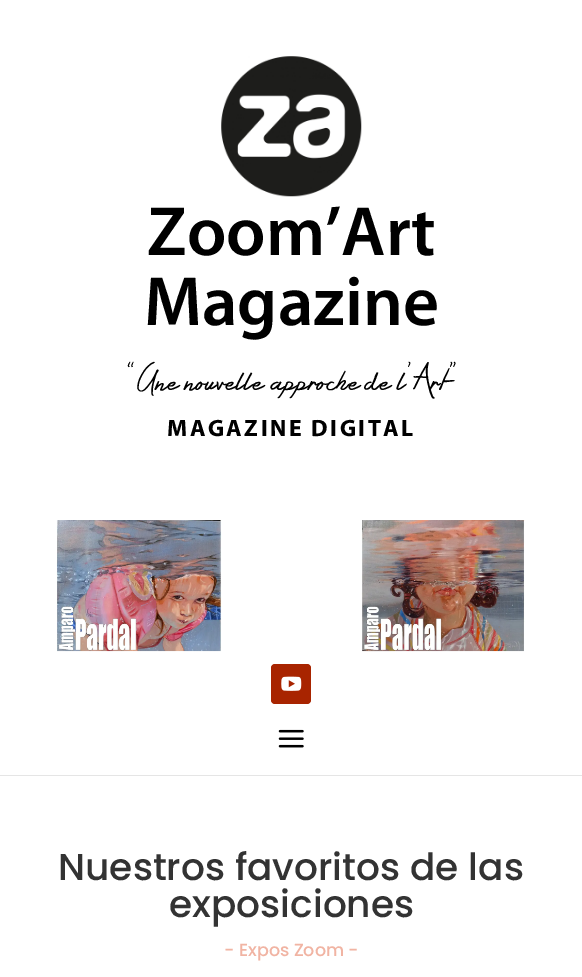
%!PS-Adobe-3.0
%%BoundingBox: 0 0 582 977
%%LanguageLevel: 3
%%Pages: 1
%%EndComments
%%BeginProlog
/m { moveto } bind def
/f { fill } bind def
/fn { [ exch dup neg 0 0 3 -1 roll 0 0 ] selectfont } def
/tx { moveto show } def
/bx { rectfill } def
/rr { 5 dict begin { /r /h /w /y /x } { exch def } forall
  x r add y moveto x w add y 2 copy h add r arct x w add y h add x 1 index r arct
  x y h add x y r arct x y 2 copy exch w add exch r arct closepath end } def
/im { 5 dict begin { /h /w /y /x /name } { exch def } forall
  gsave x y translate w h scale
  w h 8 [w 0 0 h 0 0] name (r) file false 3 colorimage grestore end } def
%%EndProlog
%%BeginSetup
<< /PageSize [582 977] >> setpagedevice
%%EndSetup
%%Page: 1 1
0 977 translate 1 -1 scale
4 setmiterlimit
1 setgray
0 0 582 977 bx
(image0.raw) 221 56 141 141 im
/Myriad-SemiBold 70 fn
0 setgray
(Zoom’Art) 147 255 tx
(Magazine) 144 325 tx
/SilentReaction-Regular 26.25 fn
(“Une nouvelle approche de l’Art”) 125 390 tx
/Myriad-Bold 23.75 fn
167 436 m 2.5 0 (MAGAZINE DIGITAL) ashow
(image1.raw) 56 520 166 132 im
(image2.raw) 361 520 164 132 im
0.898 setgray
0 775 582 1 bx
0.659 0.141 0 setrgbcolor
271 664 40 40 4 rr f
(image3.raw) 281 676 21 15 im
(image4.raw) 278 729 26 19 im
/Poppins-Medium 37.5 fn
0.2 setgray
(Nuestros favoritos de las) 58 880 tx
(exposiciones) 169 917 tx
/Poppins-Medium 17.5 fn
0.945 0.706 0.639 setrgbcolor
(- Expos Zoom -) 224 956 tx
showpage
%%EOF
